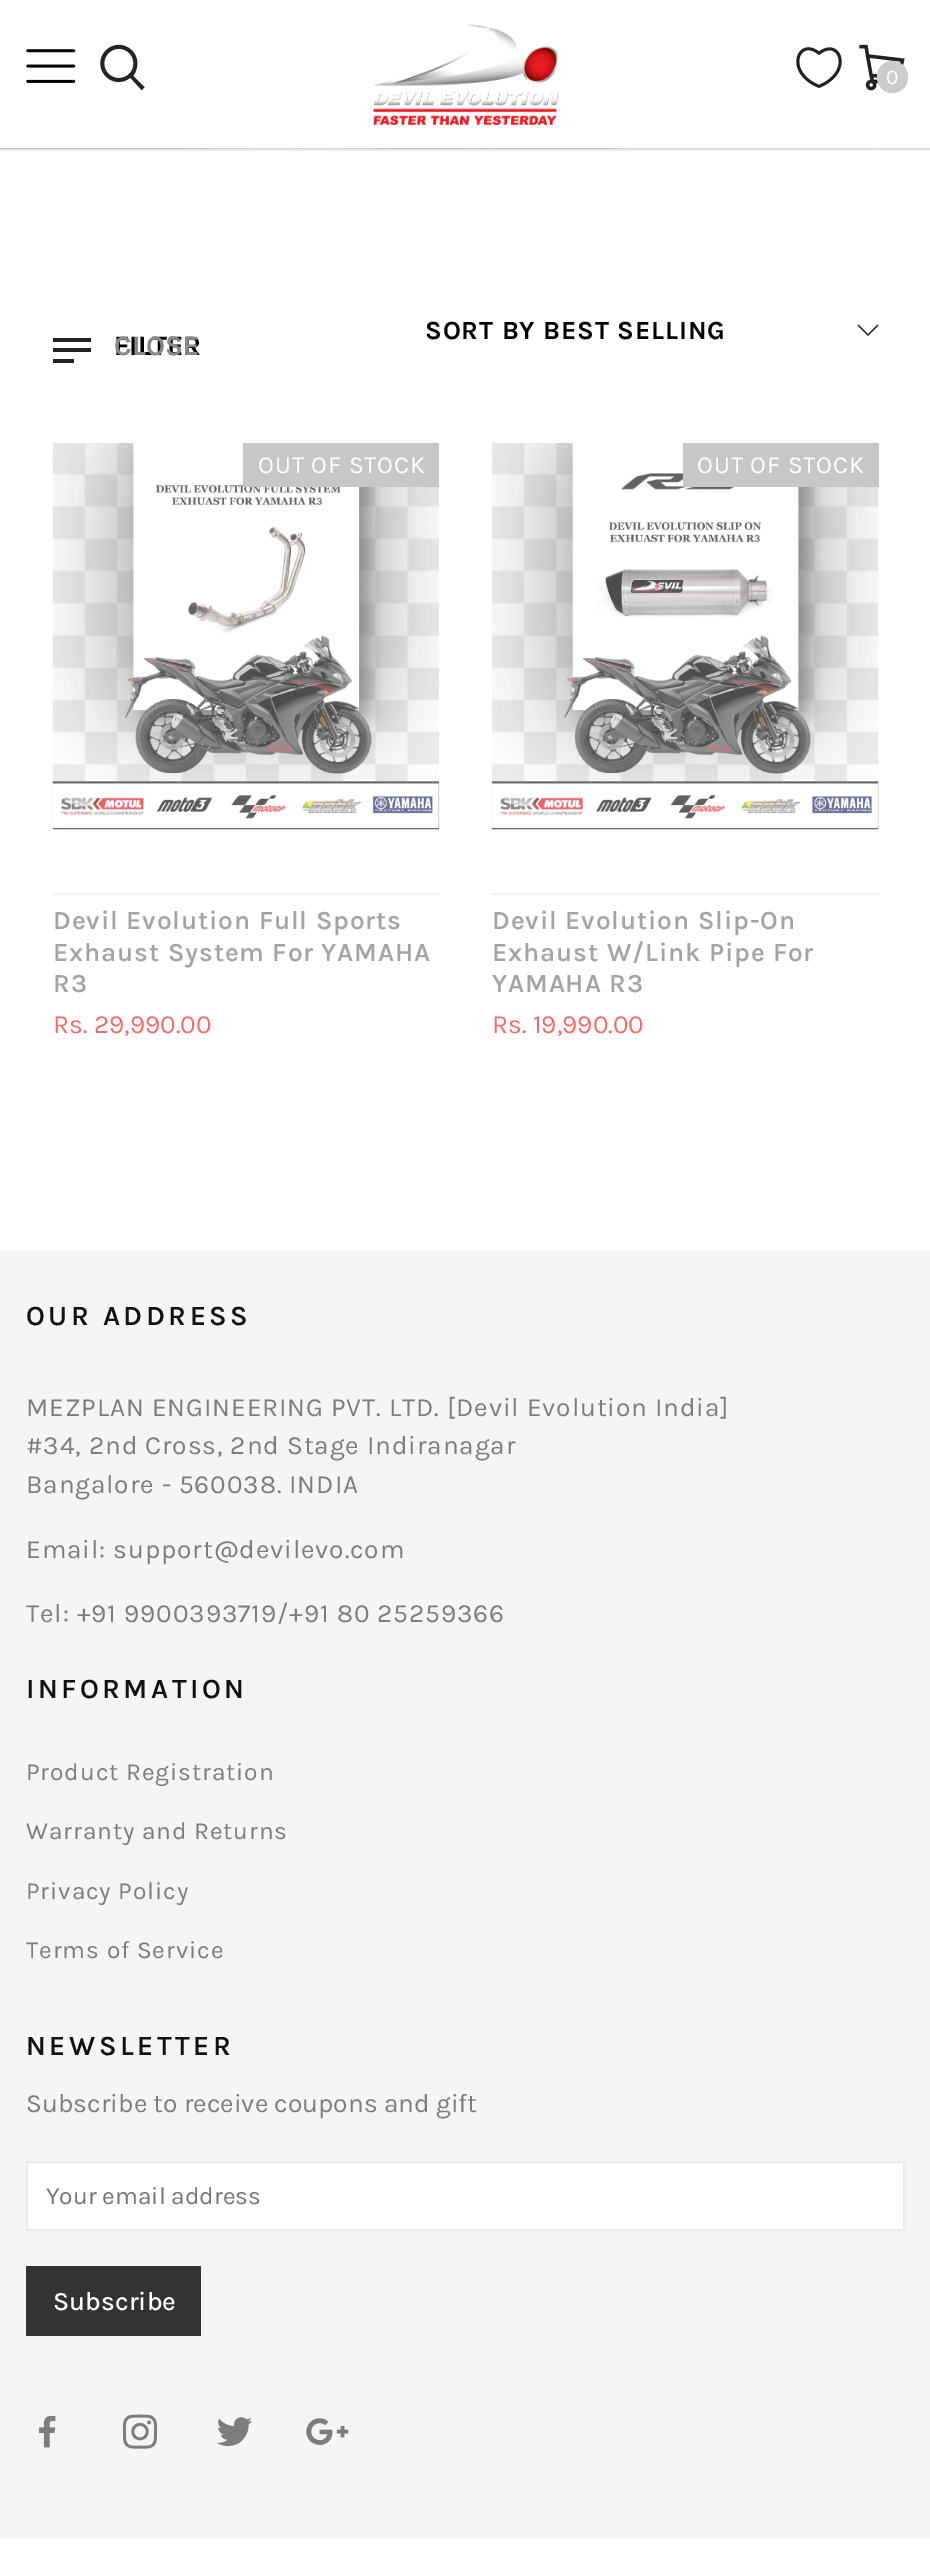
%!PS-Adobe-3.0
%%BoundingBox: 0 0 930 2555
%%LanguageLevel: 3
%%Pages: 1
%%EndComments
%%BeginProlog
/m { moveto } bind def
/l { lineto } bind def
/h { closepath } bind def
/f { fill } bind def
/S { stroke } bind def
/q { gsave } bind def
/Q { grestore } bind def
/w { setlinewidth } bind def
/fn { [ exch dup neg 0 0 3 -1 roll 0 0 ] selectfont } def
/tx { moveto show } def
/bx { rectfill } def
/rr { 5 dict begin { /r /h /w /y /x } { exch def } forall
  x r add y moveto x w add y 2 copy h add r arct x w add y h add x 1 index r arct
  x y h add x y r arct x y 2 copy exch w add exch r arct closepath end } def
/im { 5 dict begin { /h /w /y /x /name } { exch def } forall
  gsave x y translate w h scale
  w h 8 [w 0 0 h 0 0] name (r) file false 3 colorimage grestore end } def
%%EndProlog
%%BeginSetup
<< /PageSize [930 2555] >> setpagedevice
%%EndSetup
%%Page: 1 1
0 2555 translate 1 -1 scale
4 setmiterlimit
1 setgray
0 0 930 2555 bx
(image0.raw) 26 49 50 34 im
(image1.raw) 100 44 45 47 im
(image2.raw) 373 24 186 101 im
(image3.raw) 796 47 46 41 im
(image4.raw) 859 44 46 47 im
0.8 setgray
877 61 31 32 15.5 rr f
/Karla-Regular 21 fn
1 setgray
(0) 886 84 tx
(image5.raw) 0 148 930 1 im
0.922 setgray
0 149 930 2 bx
/Karla-Bold 26.25 fn
0 setgray
425 339 m 0.88 0 (SORT BY BEST SELLING) ashow
0.129 0.145 0.161 setrgbcolor
858.5 324.5 m 868 334 l 877.5 324.5 l 878.5 325.5 l 868 336 l 857.5 325.5 l h f
0.133 setgray
53 348 38 4 bx
53 338 38 4 bx
53 359 21 4 bx
/Karla-Bold 28 fn
0 setgray
(FILTER) 114 355 tx
0.537 setgray
(CLOSE) 114 355 tx
(image6.raw) 52 443 388 387 im
0.78 setgray
243 443 196 44 bx
/Karla-Regular 24.5 fn
1 setgray
258 473 m 0.88 0 (OUT OF STOCK) ashow
0.945 setgray
53 893 386 2 bx
/Karla-SemiBold 26.25 fn
0.643 setgray
53 929 m 0.88 0 (Devil Evolution Full Sports) ashow
53 961 m 0.88 0 (Exhaust System For YAMAHA) ashow
53 992 m 0.88 0 (R3) ashow
/Karla-Regular 26.25 fn
0.933 0.431 0.431 setrgbcolor
(Rs. 29,990.00) 53 1033 tx
(image7.raw) 491 443 388 387 im
0.78 setgray
683 443 196 44 bx
/Karla-Regular 24.5 fn
1 setgray
697 473 m 0.88 0 (OUT OF STOCK) ashow
0.945 setgray
492 893 387 2 bx
/Karla-SemiBold 26.25 fn
0.643 setgray
492 929 m 0.88 0 (Devil Evolution Slip-On) ashow
492 961 m 0.88 0 (Exhaust W/Link Pipe For) ashow
492 992 m 0.88 0 (YAMAHA R3) ashow
/Karla-Regular 26.25 fn
0.933 0.431 0.431 setrgbcolor
(Rs. 19,990.00) 492 1033 tx
0.961 setgray
0 1251 930 1288 bx
/Karla-SemiBold 28 fn
0.067 setgray
26 1325 m 3.5 0 (OUR ADDRESS) ashow
/Karla-Regular 26.25 fn
0.49 setgray
26 1416 m 0.88 0 (MEZPLAN ENGINEERING PVT. LTD. [Devil Evolution India]) ashow
26 1454 m 0.88 0 (#34, 2nd Cross, 2nd Stage Indiranagar) ashow
26 1493 m 0.88 0 (Bangalore - 560038. INDIA) ashow
26 1558 m 0.88 0 (Email: support@devilevo.com) ashow
26 1622 m 0.88 0 (Tel: +91 9900393719/+91 80 25259366) ashow
/Karla-SemiBold 28 fn
0.067 setgray
26 1698 m 3.5 0 (INFORMATION) ashow
/Karla-Regular 24.5 fn
0.49 setgray
26 1780 m 0.88 0 (Product Registration) ashow
26 1839 m 0.88 0 (Warranty and Returns) ashow
26 1899 m 0.88 0 (Privacy Policy) ashow
26 1958 m 0.88 0 (Terms of Service) ashow
/Karla-SemiBold 28 fn
0.067 setgray
26 2055 m 3.5 0 (NEWSLETTER) ashow
/Karla-Regular 26.25 fn
0.49 setgray
(Subscribe to receive coupons and gift) 26 2112 tx
1 setgray
27 2162 m 904 2162 l 904 2230 l 27 2230 l h q f Q
0.922 setgray
2 w
S
/Karla-Regular 24.5 fn
0.459 setgray
(Your email address) 46 2204 tx
0.2 setgray
26 2266 175 70 bx
/Karla-Medium 26.25 fn
1 setgray
(Subscribe) 53 2310 tx
(image8.raw) 39 2415 17 33 im
(image9.raw) 122 2414 36 35 im
(image10.raw) 217 2417 35 30 im
(image11.raw) 306 2418 43 27 im
showpage
%%EOF
